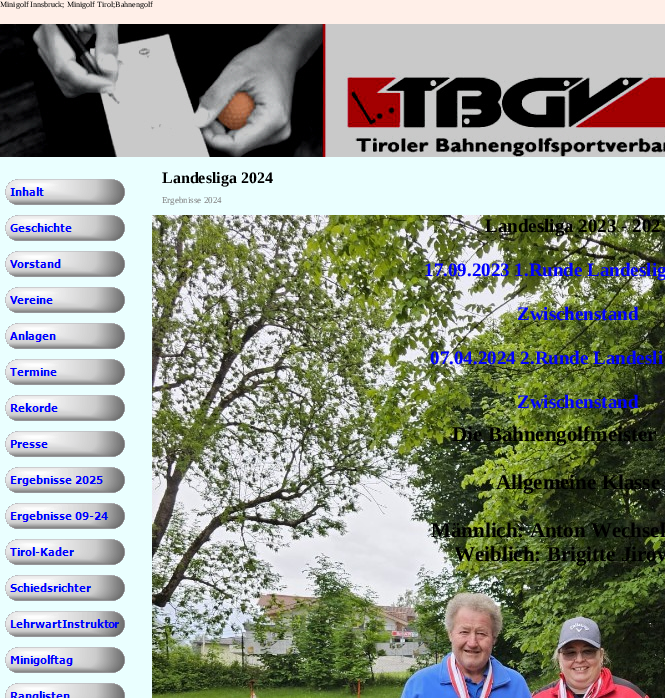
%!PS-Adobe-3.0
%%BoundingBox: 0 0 665 698
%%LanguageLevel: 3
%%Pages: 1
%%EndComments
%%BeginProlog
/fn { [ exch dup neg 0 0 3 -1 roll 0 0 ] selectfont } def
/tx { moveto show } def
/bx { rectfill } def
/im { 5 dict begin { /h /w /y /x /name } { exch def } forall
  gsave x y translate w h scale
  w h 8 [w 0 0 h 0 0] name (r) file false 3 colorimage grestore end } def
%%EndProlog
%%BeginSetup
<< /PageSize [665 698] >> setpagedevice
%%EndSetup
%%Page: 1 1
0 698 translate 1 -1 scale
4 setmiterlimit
1 0.937 0.91 setrgbcolor
0 0 665 698 bx
/LiberationSerif-Regular 8 fn
0 setgray
(Minigolf Innsbruck; Minigolf Tirol;Bahnengolf) 0 7 tx
(image0.raw) 0 24 665 133 im
0.918 1 1 setrgbcolor
0 157 665 541 bx
(image1.raw) 5 179 120 26 im
(image2.raw) 5 215 120 26 im
(image3.raw) 5 251 120 26 im
(image4.raw) 5 287 120 26 im
(image5.raw) 5 323 120 26 im
(image6.raw) 5 359 120 26 im
(image7.raw) 5 395 120 26 im
(image8.raw) 5 431 120 26 im
(image9.raw) 5 467 120 26 im
(image10.raw) 5 503 120 26 im
(image11.raw) 5 539 120 26 im
(image12.raw) 5 575 120 26 im
(image13.raw) 5 611 120 26 im
(image14.raw) 5 647 120 26 im
(image15.raw) 5 683 120 15 im
/LiberationSerif-Bold 16 fn
0 setgray
(Landesliga 2024) 162 183 tx
/LiberationSerif-Regular 9 fn
0.502 setgray
(Ergebnisse 2024) 162 203 tx
(image16.raw) 152 215 513 483 im
/LiberationSerif-Bold 19 fn
0 setgray
(Landesliga 2023 - 202) 485 232 tx
0 0 1 setrgbcolor
(17.09.2023 1.Runde Landeslig) 424 276 tx
(Zwischenstand) 517 320 tx
(07.04.2024 2.Runde Landesli) 430 364 tx
(Zwischenstand) 517 408 tx
/LiberationSerif-Bold 21 fn
0 setgray
(Die Bahnengolfmeister) 452 441 tx
(Allgemeine Klasse) 496 489 tx
(Männlich: Anton Wechsel) 431 537 tx
(Weiblich: Brigitte Jirow) 454 561 tx
showpage
%%EOF
